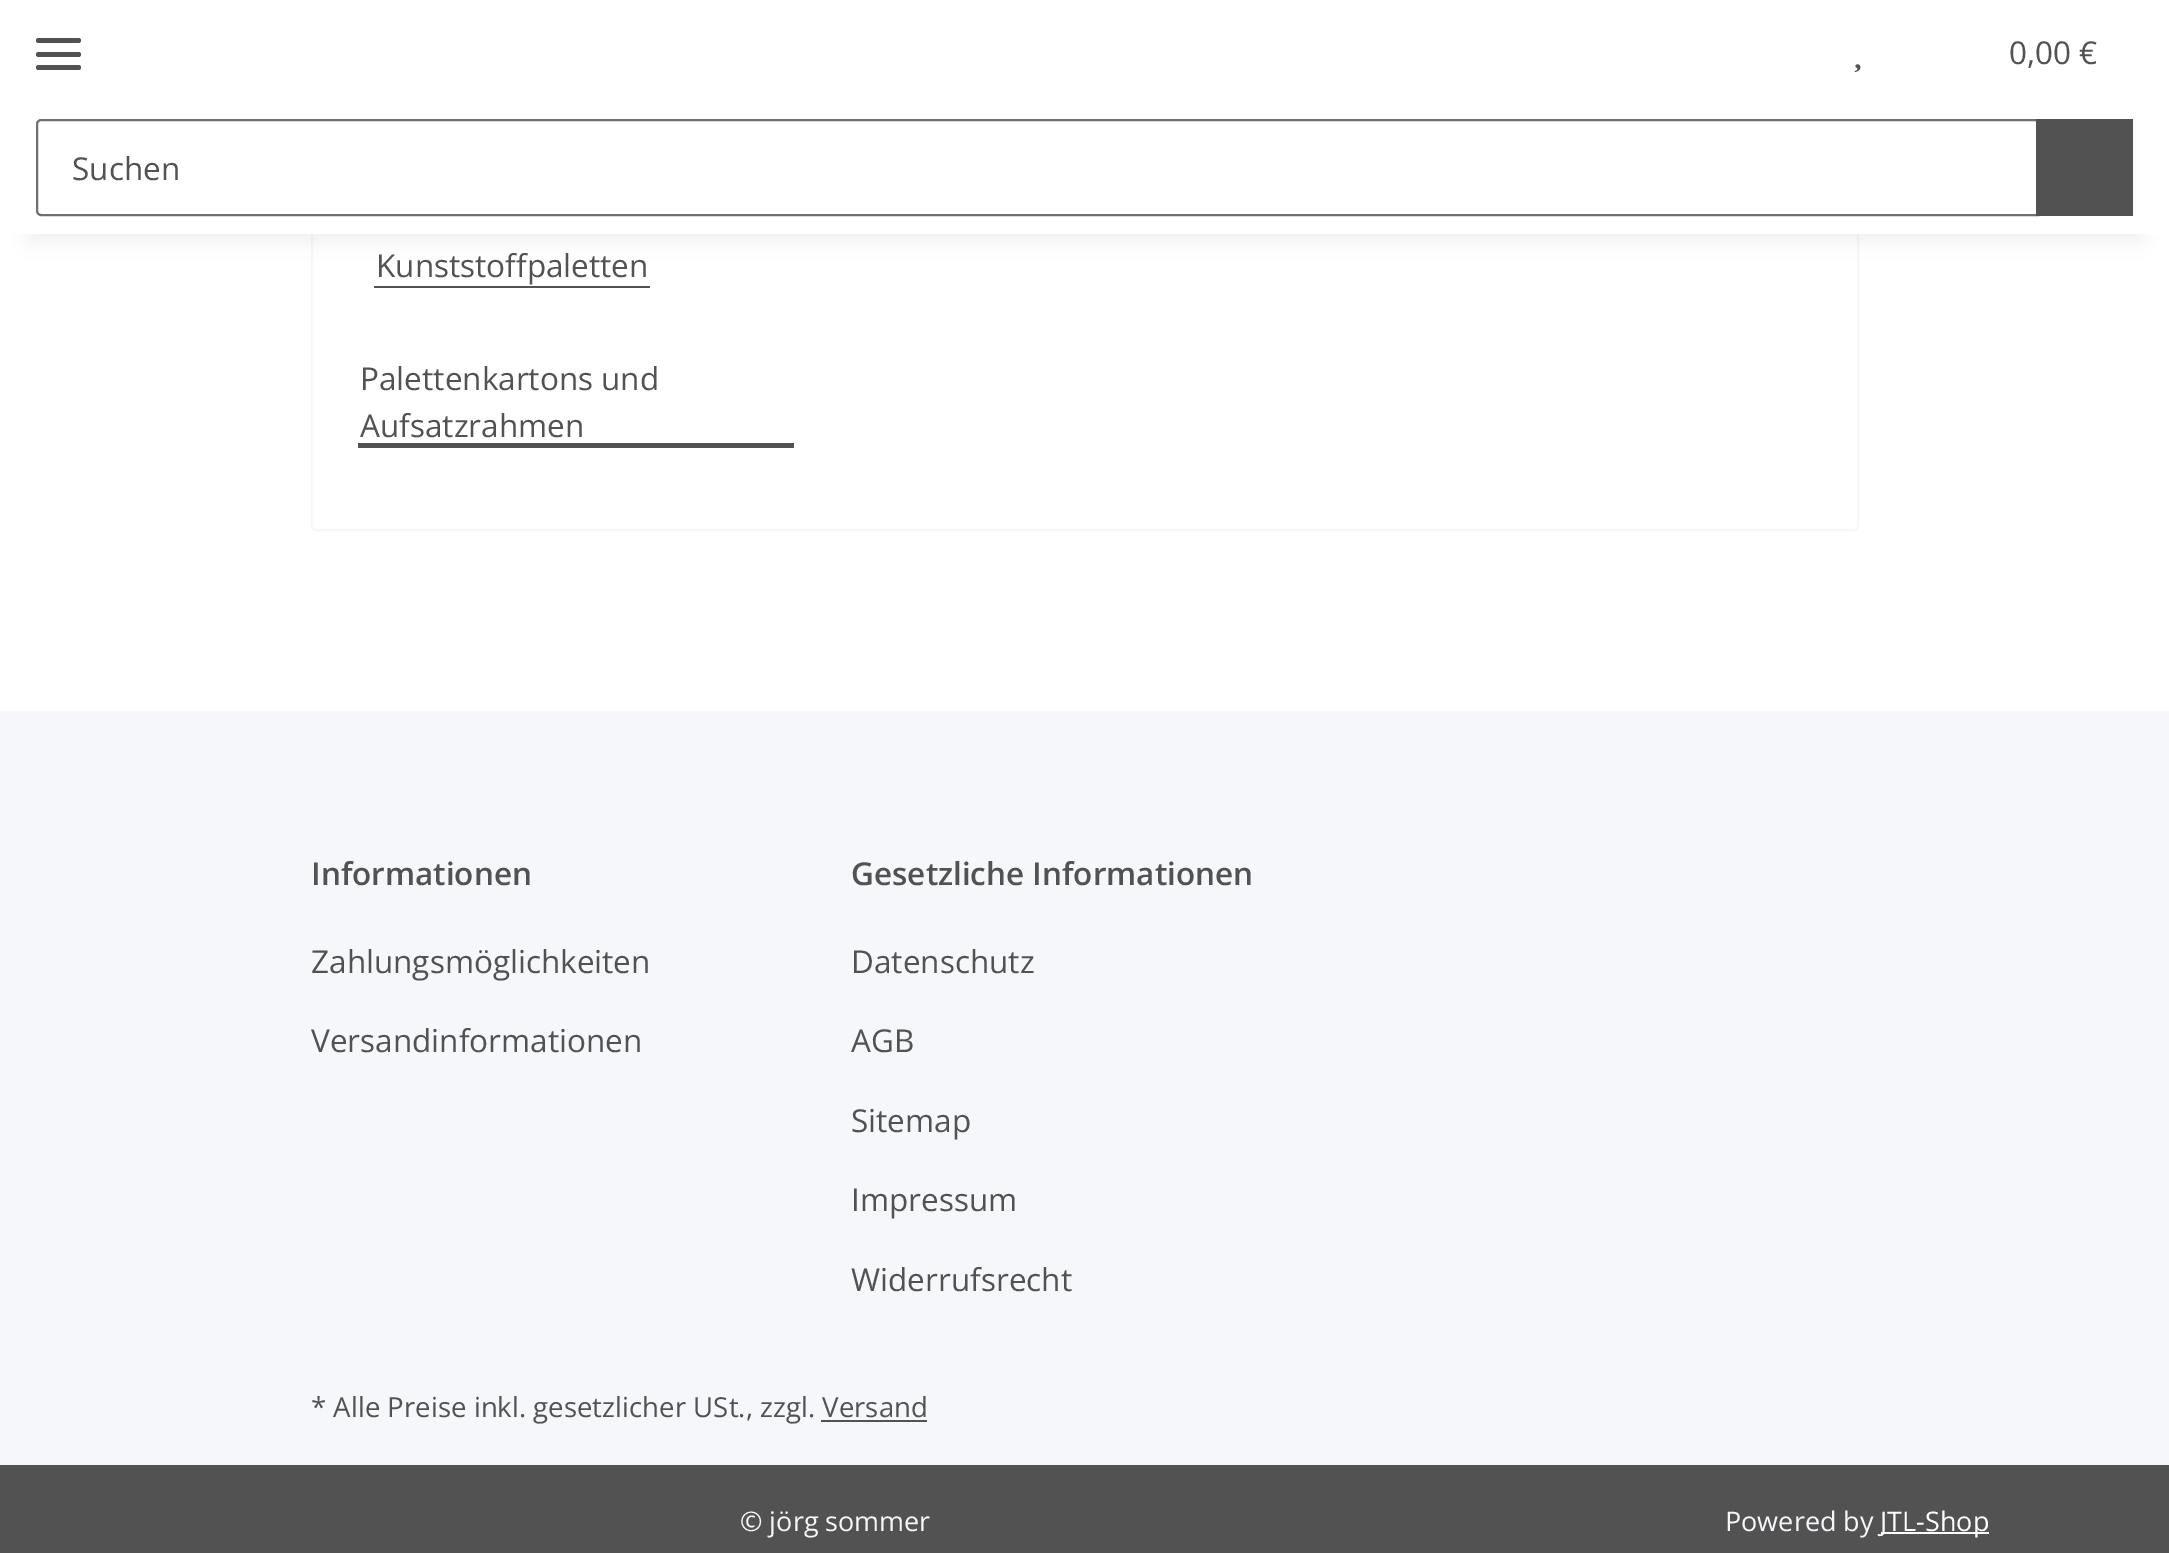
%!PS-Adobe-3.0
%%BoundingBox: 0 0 2169 1553
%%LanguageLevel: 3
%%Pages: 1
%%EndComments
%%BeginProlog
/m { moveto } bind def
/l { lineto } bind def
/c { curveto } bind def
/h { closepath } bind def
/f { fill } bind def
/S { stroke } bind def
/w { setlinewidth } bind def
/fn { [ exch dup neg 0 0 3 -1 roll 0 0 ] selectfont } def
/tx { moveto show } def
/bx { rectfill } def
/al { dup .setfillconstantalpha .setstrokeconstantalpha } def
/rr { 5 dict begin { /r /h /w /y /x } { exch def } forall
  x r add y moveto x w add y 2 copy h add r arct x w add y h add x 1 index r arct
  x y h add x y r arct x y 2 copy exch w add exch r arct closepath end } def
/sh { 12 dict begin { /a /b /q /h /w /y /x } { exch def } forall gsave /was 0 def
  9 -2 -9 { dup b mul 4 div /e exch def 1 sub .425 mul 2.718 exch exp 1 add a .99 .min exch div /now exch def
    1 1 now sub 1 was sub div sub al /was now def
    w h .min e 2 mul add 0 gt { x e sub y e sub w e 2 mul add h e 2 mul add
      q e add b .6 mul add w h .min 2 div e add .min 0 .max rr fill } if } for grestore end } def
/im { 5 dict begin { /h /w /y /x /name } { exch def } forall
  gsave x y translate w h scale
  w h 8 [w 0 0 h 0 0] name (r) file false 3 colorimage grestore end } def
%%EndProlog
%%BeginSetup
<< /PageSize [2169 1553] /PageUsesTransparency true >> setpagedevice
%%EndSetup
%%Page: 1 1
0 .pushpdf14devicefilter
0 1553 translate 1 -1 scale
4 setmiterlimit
0.961 0.969 0.98 setrgbcolor
0 0 2169 1553 bx
1 setgray
0 234 2169 477 bx
0.961 0.969 0.98 setrgbcolor
2 w
312 -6 1546 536 4 rr S
0 setgray
27 63 2115 180 0 10 0.06 sh
1 setgray
0 0 2169 234 bx
0.322 setgray
36 52 45 5 2.5 rr f
36 38 45 5 2.5 rr f
36 65 45 5 2.5 rr f
(image0.raw) 1854 64 7 9 im
/OpenSans-Regular 31.5 fn
(0,00 €) 2009 64 tx
0.439 setgray
41 120 m 2038 120 l 2038 215 l 41 215 l 39 215 37 213 37 211 c 37 124 l 37 122 39 120 41 120 c h S
0.322 setgray
(Suchen) 72 180 tx
2036 119 97 97 bx
(Kunststoffpaletten) 376 277 tx
374 286 276 2 bx
(Palettenkartons und) 360 390 tx
(Aufsatzrahmen) 360 437 tx
358 443 436 5 bx
/OpenSans-SemiBold 31.5 fn
(Informationen) 311 885 tx
/OpenSans-Regular 31.5 fn
(Zahlungsmöglichkeiten) 311 973 tx
(Versandinformationen) 311 1052 tx
/OpenSans-SemiBold 31.5 fn
(Gesetzliche Informationen) 851 885 tx
/OpenSans-Regular 31.5 fn
(Datenschutz) 851 973 tx
(AGB) 851 1052 tx
(Sitemap) 851 1132 tx
(Impressum) 851 1211 tx
(Widerrufsrecht) 851 1291 tx
/OpenSans-Regular 27.6 fn
(* Alle Preise inkl. gesetzlicher USt., zzgl. Versand) 311 1417 tx
821 1420 106 2 bx
0 1465 2169 88 bx
/OpenSans-Regular 27 fn
0.961 0.969 0.98 setrgbcolor
(© jörg sommer) 740 1531 tx
(Powered by) 1725 1531 tx
1 setgray
1881 1532 108 2 bx
(JTL-Shop) 1880 1531 tx
.poppdf14devicefilter showpage
%%EOF
